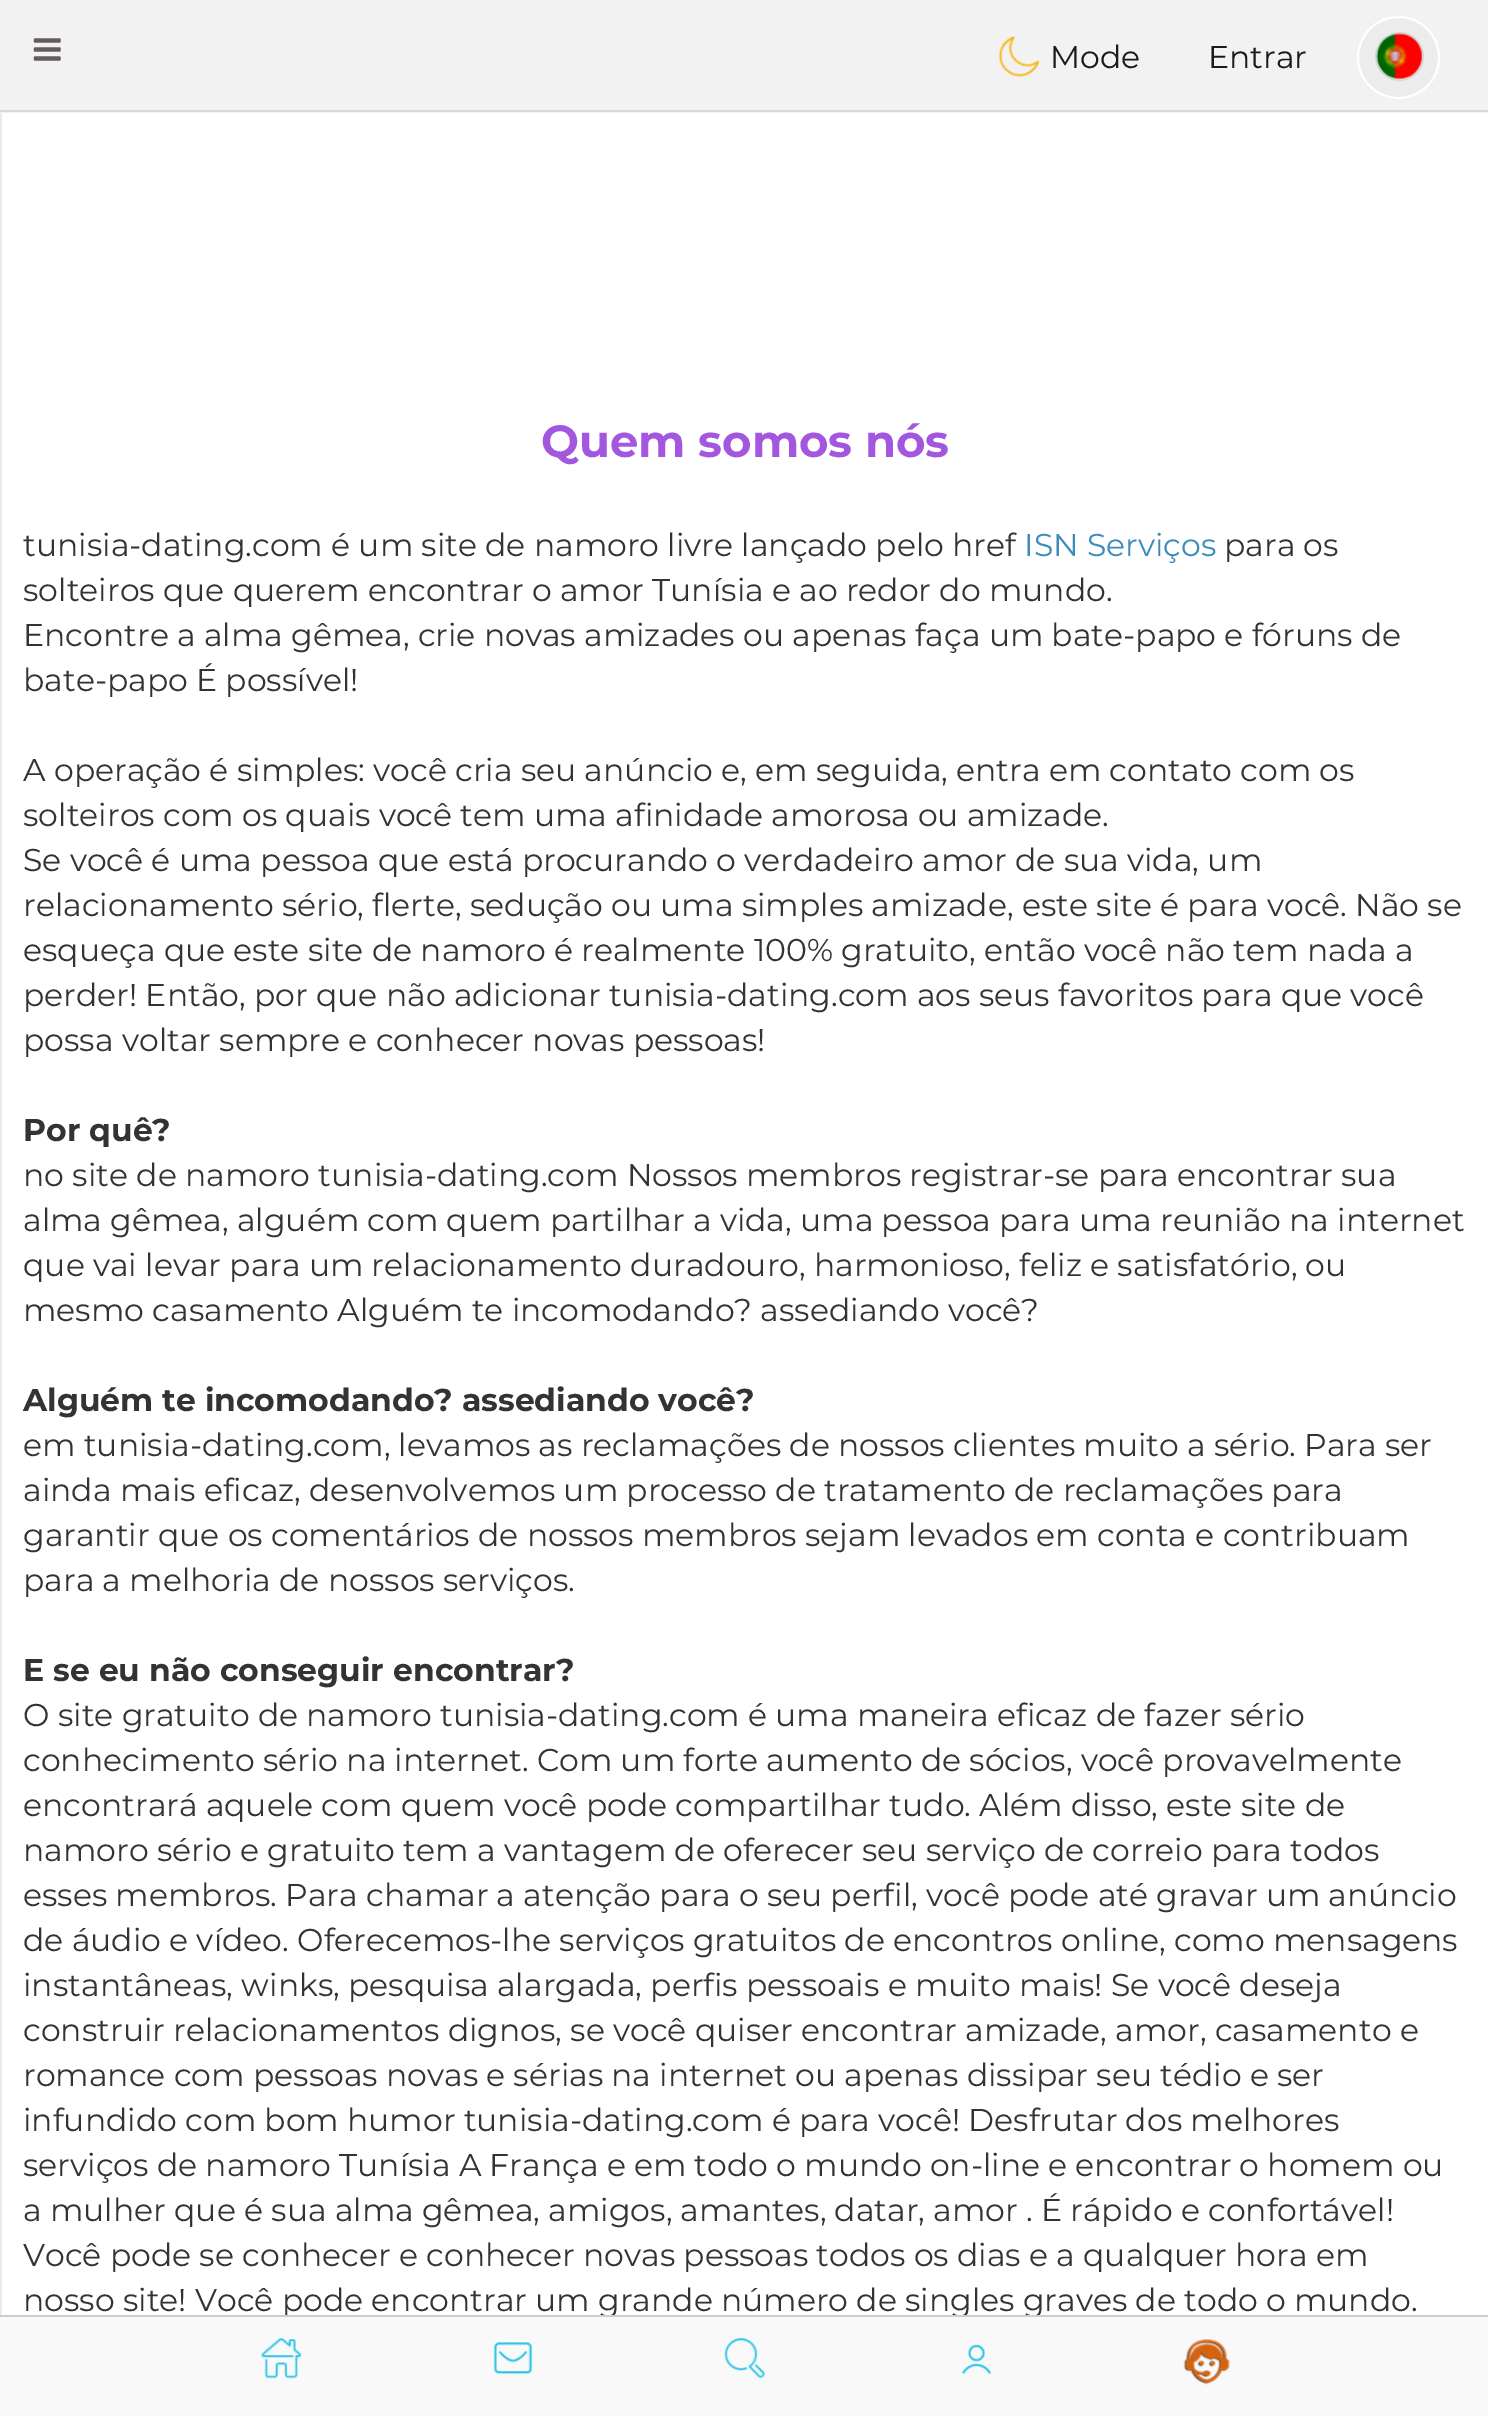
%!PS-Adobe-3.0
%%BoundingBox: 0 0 1488 2416
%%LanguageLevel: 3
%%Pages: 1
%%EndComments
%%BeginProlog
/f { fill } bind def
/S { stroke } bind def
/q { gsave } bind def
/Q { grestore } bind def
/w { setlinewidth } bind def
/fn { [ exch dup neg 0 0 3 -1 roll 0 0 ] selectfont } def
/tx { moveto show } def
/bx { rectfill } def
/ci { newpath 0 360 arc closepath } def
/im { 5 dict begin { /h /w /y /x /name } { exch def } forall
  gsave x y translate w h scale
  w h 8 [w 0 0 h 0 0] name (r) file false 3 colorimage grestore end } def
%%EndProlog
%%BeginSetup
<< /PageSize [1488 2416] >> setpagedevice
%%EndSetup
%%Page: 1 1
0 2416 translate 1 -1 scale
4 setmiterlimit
1 setgray
0 0 1488 2416 bx
0.949 setgray
0 0 1488 113 bx
0.863 0.839 0.839 setrgbcolor
0 110 1488 2 bx
(image0.raw) 33 38 28 23 im
(image1.raw) 998 36 42 41 im
/Montserrat-Regular 31.5 fn
0.102 setgray
(Mode) 1050 68 tx
(Entrar) 1208 68 tx
0.925 setgray
1398.5 57.5 40.5 ci q f Q
1 setgray
2 w
S
0.843 setgray
1399.5 56.5 23.5 ci S
(image2.raw) 1376 33 47 47 im
0.918 0.91 0.91 setrgbcolor
0 113 2 2202 bx
/Montserrat-Bold 45 fn
0.639 0.341 0.875 setrgbcolor
(Quem somos nós) 541 457 tx
/Montserrat-Regular 31.5 fn
0.2 setgray
(tunisia-dating.com é um site de namoro livre lançado pelo href) 23 556 tx
0.235 0.553 0.737 setrgbcolor
(ISN Serviços) 1024 556 tx
0.2 setgray
(para os) 1224 556 tx
(solteiros que querem encontrar o amor Tunísia e ao redor do mundo.) 23 601 tx
(Encontre a alma gêmea, crie novas amizades ou apenas faça um bate-papo e fóruns de) 23 646 tx
(bate-papo É possível!) 23 691 tx
(A operação é simples: você cria seu anúncio e, em seguida, entra em contato com os) 23 781 tx
(solteiros com os quais você tem uma afinidade amorosa ou amizade.) 23 826 tx
(Se você é uma pessoa que está procurando o verdadeiro amor de sua vida, um) 23 871 tx
(relacionamento sério, flerte, sedução ou uma simples amizade, este site é para você. Não se) 23 916 tx
(esqueça que este site de namoro é realmente 100% gratuito, então você não tem nada a) 23 961 tx
(perder! Então, por que não adicionar tunisia-dating.com aos seus favoritos para que você) 23 1006 tx
(possa voltar sempre e conhecer novas pessoas!) 23 1051 tx
/Montserrat-Bold 31.5 fn
(Por quê?) 23 1141 tx
/Montserrat-Regular 31.5 fn
(no site de namoro tunisia-dating.com Nossos membros registrar-se para encontrar sua) 23 1186 tx
(alma gêmea, alguém com quem partilhar a vida, uma pessoa para uma reunião na internet) 23 1231 tx
(que vai levar para um relacionamento duradouro, harmonioso, feliz e satisfatório, ou) 23 1276 tx
(mesmo casamento Alguém te incomodando? assediando você?) 23 1321 tx
/Montserrat-Bold 31.5 fn
(Alguém te incomodando? assediando você?) 23 1411 tx
/Montserrat-Regular 31.5 fn
(em tunisia-dating.com, levamos as reclamações de nossos clientes muito a sério. Para ser) 23 1456 tx
(ainda mais eficaz, desenvolvemos um processo de tratamento de reclamações para) 23 1501 tx
(garantir que os comentários de nossos membros sejam levados em conta e contribuam) 23 1546 tx
(para a melhoria de nossos serviços.) 23 1591 tx
/Montserrat-Bold 31.5 fn
(E se eu não conseguir encontrar?) 23 1681 tx
/Montserrat-Regular 31.5 fn
(O site gratuito de namoro tunisia-dating.com é uma maneira eficaz de fazer sério) 23 1726 tx
(conhecimento sério na internet. Com um forte aumento de sócios, você provavelmente) 23 1771 tx
(encontrará aquele com quem você pode compartilhar tudo. Além disso, este site de) 23 1816 tx
(namoro sério e gratuito tem a vantagem de oferecer seu serviço de correio para todos) 23 1861 tx
(esses membros. Para chamar a atenção para o seu perfil, você pode até gravar um anúncio) 23 1906 tx
(de áudio e vídeo. Oferecemos-lhe serviços gratuitos de encontros online, como mensagens) 23 1951 tx
(instantâneas, winks, pesquisa alargada, perfis pessoais e muito mais! Se você deseja) 23 1996 tx
(construir relacionamentos dignos, se você quiser encontrar amizade, amor, casamento e) 23 2041 tx
(romance com pessoas novas e sérias na internet ou apenas dissipar seu tédio e ser) 23 2086 tx
(infundido com bom humor tunisia-dating.com é para você! Desfrutar dos melhores) 23 2131 tx
(serviços de namoro Tunísia A França e em todo o mundo on-line e encontrar o homem ou) 23 2176 tx
(a mulher que é sua alma gêmea, amigos, amantes, datar, amor . É rápido e confortável!) 23 2221 tx
(Você pode se conhecer e conhecer novas pessoas todos os dias e a qualquer hora em) 23 2266 tx
(nosso site! Você pode encontrar um grande número de singles graves de todo o mundo.) 23 2311 tx
0.976 setgray
0 2317 1488 99 bx
0.82 0.796 0.796 setrgbcolor
0 2315 1488 2 bx
(image3.raw) 260 2338 42 41 im
(image4.raw) 493 2342 40 33 im
(image5.raw) 724 2338 41 41 im
(image6.raw) 961 2344 30 31 im
(image7.raw) 1183 2339 47 46 im
showpage
%%EOF
